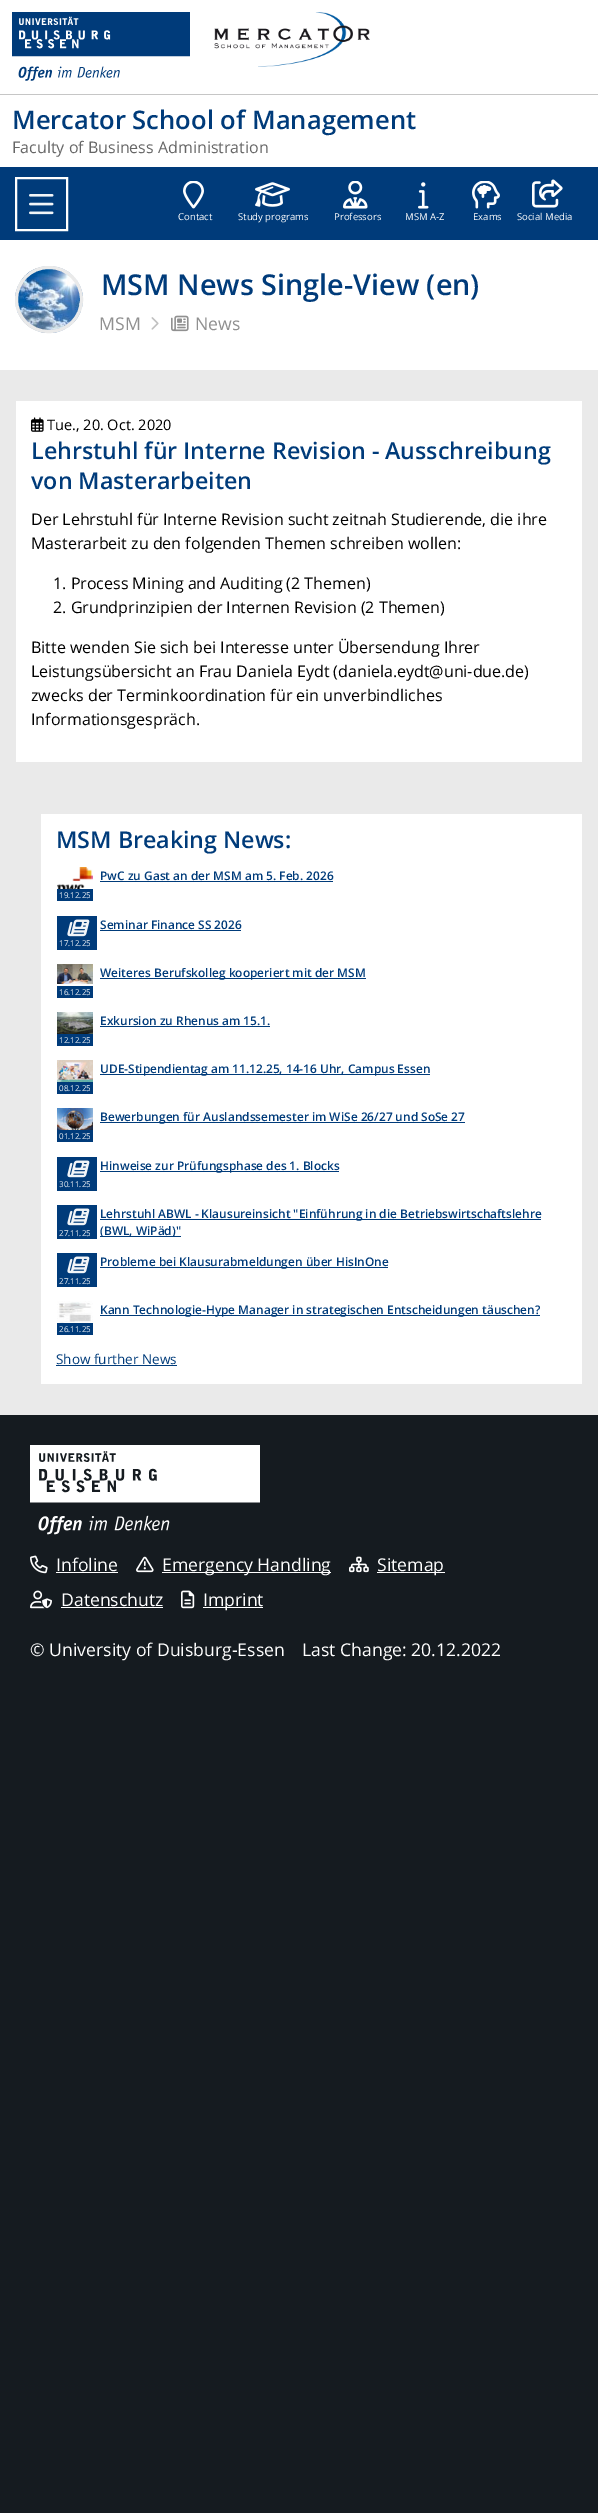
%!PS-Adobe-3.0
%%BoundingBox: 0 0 598 2513
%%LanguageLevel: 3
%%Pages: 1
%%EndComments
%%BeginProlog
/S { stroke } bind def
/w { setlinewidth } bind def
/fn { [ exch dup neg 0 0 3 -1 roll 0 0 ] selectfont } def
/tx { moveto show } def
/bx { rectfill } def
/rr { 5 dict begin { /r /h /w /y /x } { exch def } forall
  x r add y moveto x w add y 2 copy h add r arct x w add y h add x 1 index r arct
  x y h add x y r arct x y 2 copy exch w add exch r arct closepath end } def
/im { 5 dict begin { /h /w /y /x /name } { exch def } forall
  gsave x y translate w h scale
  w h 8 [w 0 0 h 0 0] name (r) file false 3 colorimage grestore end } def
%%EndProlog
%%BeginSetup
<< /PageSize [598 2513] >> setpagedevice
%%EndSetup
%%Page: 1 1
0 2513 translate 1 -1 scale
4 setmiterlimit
0.082 0.106 0.125 setrgbcolor
0 0 598 2513 bx
1 setgray
0 0 598 370 bx
(image0.raw) 12 12 178 69 im
(image1.raw) 214 12 156 55 im
0.776 setgray
0 94 598 1 bx
/OpenSans-SemiBold 25.6 fn
0 0.231 0.478 setrgbcolor
(Mercator School of Management) 12 129 tx
/OpenSans-Regular 16 fn
0.4 setgray
(Faculty of Business Administration) 12 153 tx
0 0.231 0.478 setrgbcolor
0 167 598 73 bx
1 setgray
2 w
16 178 51 52 rectstroke
(image2.raw) 29 194 25 21 im
(image3.raw) 183 181 21 28 im
/OpenSans-Regular 9.5 fn
(Contact) 178 220 tx
(image4.raw) 255 182 35 25 im
(Study programs) 238 220 tx
(image5.raw) 343 181 25 28 im
(Professors) 334 220 tx
(image6.raw) 418 182 11 27 im
(MSM A-Z) 405 220 tx
(image7.raw) 472 181 28 28 im
(Exams) 473 220 tx
(image8.raw) 532 179 31 29 im
(Social Media) 517 220 tx
(image9.raw) 15 266 68 67 im
0.918 setgray
3 w
16.5 267.5 65 64 32 rr S
/OpenSans-SemiBold 28.75 fn
0 0.231 0.478 setrgbcolor
(MSM News Single-View \(en\)) 101 295 tx
/OpenSans-Regular 17.6 fn
0.565 setgray
(MSM) 99 330 tx
(image10.raw) 151 317 8 13 im
(image11.raw) 171 315 18 17 im
(News) 195 330 tx
0.918 setgray
0 370 598 1045 bx
1 setgray
16 401 566 361 bx
(image12.raw) 31 417 13 15 im
/OpenSans-Regular 14.5 fn
0 setgray
(Tue., 20. Oct. 2020) 47 430 tx
/OpenSans-SemiBold 23.2 fn
0 0.231 0.478 setrgbcolor
(Lehrstuhl für Interne Revision - Ausschreibung) 31 459 tx
(von Masterarbeiten) 31 489 tx
/OpenSans-Regular 16 fn
0 setgray
(Der Lehrstuhl für Interne Revision sucht zeitnah Studierende, die ihre) 31 525 tx
(Masterarbeit zu den folgenden Themen schreiben wollen:) 31 549 tx
(1. Process Mining and Auditing \(2 Themen\)) 53 589 tx
(2. Grundprinzipien der Internen Revision \(2 Themen\)) 53 613 tx
(Bitte wenden Sie sich bei Interesse unter Übersendung Ihrer) 31 653 tx
(Leistungsübersicht an Frau Daniela Eydt \(daniela.eydt@uni-due.de\)) 31 677 tx
(zwecks der Terminkoordination für ein unverbindliches) 31 701 tx
(Informationsgespräch.) 31 725 tx
1 setgray
41 814 541 570 bx
/OpenSans-SemiBold 23.2 fn
0 0.231 0.478 setrgbcolor
(MSM Breaking News:) 56 848 tx
(image13.raw) 57 867 36 22 im
/OpenSans-SemiBold 11.9 fn
(PwC zu Gast an der MSM am 5. Feb. 2026) 100 880 tx
100 881 233 1 bx
57 889 36 12 bx
/OpenSans-Regular 8 fn
0.949 0.961 0.973 setrgbcolor
(19.12.25) 59 898 tx
0 0.231 0.478 setrgbcolor
57 916 40 34 bx
(image14.raw) 67 919 23 18 im
/OpenSans-SemiBold 11.9 fn
(Seminar Finance SS 2026) 100 929 tx
100 930 141 1 bx
/OpenSans-Regular 8 fn
0.949 0.961 0.973 setrgbcolor
(17.12.25) 59 946 tx
(image15.raw) 57 964 36 20 im
0 0.231 0.478 setrgbcolor
100 978 266 1 bx
/OpenSans-SemiBold 11.9 fn
(Weiteres Berufskolleg kooperiert mit der MSM) 100 977 tx
57 986 36 12 bx
/OpenSans-Regular 8 fn
0.949 0.961 0.973 setrgbcolor
(16.12.25) 59 995 tx
(image16.raw) 57 1012 36 22 im
/OpenSans-SemiBold 11.9 fn
0 0.231 0.478 setrgbcolor
(Exkursion zu Rhenus am 15.1.) 100 1025 tx
100 1026 170 1 bx
57 1034 36 12 bx
/OpenSans-Regular 8 fn
0.949 0.961 0.973 setrgbcolor
(12.12.25) 59 1043 tx
(image17.raw) 57 1060 36 22 im
0 0.231 0.478 setrgbcolor
100 1074 330 1 bx
/OpenSans-SemiBold 11.9 fn
(UDE-Stipendientag am 11.12.25, 14-16 Uhr, Campus Essen) 100 1073 tx
57 1082 36 12 bx
/OpenSans-Regular 8 fn
0.949 0.961 0.973 setrgbcolor
(08.12.25) 59 1091 tx
(image18.raw) 57 1108 36 22 im
0 0.231 0.478 setrgbcolor
100 1122 365 1 bx
/OpenSans-SemiBold 11.9 fn
(Bewerbungen für Auslandssemester im WiSe 26/27 und SoSe 27) 100 1121 tx
57 1130 36 12 bx
/OpenSans-Regular 8 fn
0.949 0.961 0.973 setrgbcolor
(01.12.25) 59 1139 tx
0 0.231 0.478 setrgbcolor
57 1157 40 34 bx
(image14.raw) 67 1160 23 18 im
100 1171 239 1 bx
/OpenSans-SemiBold 11.9 fn
(Hinweise zur Prüfungsphase des 1. Blocks) 100 1170 tx
/OpenSans-Regular 8 fn
0.949 0.961 0.973 setrgbcolor
(30.11.25) 59 1187 tx
0 0.231 0.478 setrgbcolor
57 1205 40 34 bx
(image14.raw) 67 1208 23 18 im
100 1219 441 1 bx
/OpenSans-SemiBold 11.9 fn
(Lehrstuhl ABWL - Klausureinsicht "Einführung in die Betriebswirtschaftslehre) 100 1218 tx
100 1236 81 1 bx
(\(BWL, WiPäd\)") 100 1235 tx
/OpenSans-Regular 8 fn
0.949 0.961 0.973 setrgbcolor
(27.11.25) 59 1236 tx
0 0.231 0.478 setrgbcolor
57 1253 40 34 bx
(image14.raw) 67 1256 23 18 im
100 1267 288 1 bx
/OpenSans-SemiBold 11.9 fn
(Probleme bei Klausurabmeldungen über HisInOne) 100 1266 tx
/OpenSans-Regular 8 fn
0.949 0.961 0.973 setrgbcolor
(27.11.25) 59 1284 tx
(image19.raw) 57 1301 36 22 im
0 0.231 0.478 setrgbcolor
100 1315 440 1 bx
/OpenSans-SemiBold 11.9 fn
(Kann Technologie-Hype Manager in strategischen Entscheidungen täuschen?) 100 1314 tx
57 1323 36 12 bx
/OpenSans-Regular 8 fn
0.949 0.961 0.973 setrgbcolor
(26.11.25) 59 1332 tx
/OpenSans-Regular 13.5 fn
0 0.231 0.478 setrgbcolor
(Show further News) 56 1364 tx
56 1365 121 1 bx
(image20.raw) 30 1445 230 90 im
(image21.raw) 30 1555 18 19 im
/OpenSans-Regular 17.6 fn
1 setgray
(Infoline) 56 1571 tx
56 1572 62 1 bx
(image22.raw) 136 1556 18 17 im
162 1572 169 1 bx
(Emergency Handling) 162 1571 tx
(image23.raw) 349 1556 20 17 im
377 1572 68 1 bx
(Sitemap) 377 1571 tx
(image24.raw) 30 1590 22 19 im
(Datenschutz) 61 1606 tx
61 1607 102 1 bx
(image25.raw) 181 1590 14 19 im
203 1607 60 1 bx
(Imprint) 203 1606 tx
(© University of Duisburg-Essen) 30 1656 tx
(Last Change: 20.12.2022) 302 1656 tx
showpage
%%EOF
